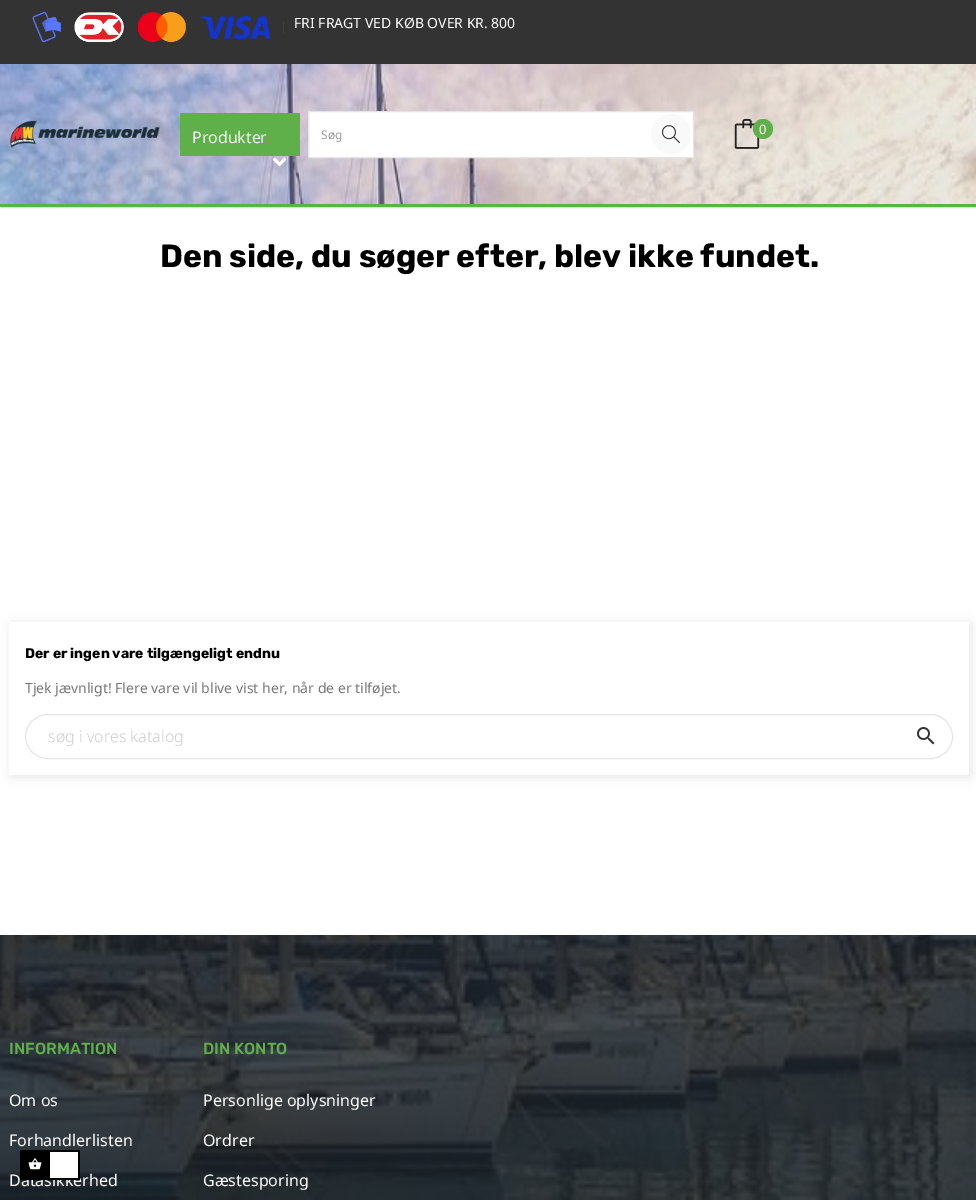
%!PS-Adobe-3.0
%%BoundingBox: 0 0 976 1200
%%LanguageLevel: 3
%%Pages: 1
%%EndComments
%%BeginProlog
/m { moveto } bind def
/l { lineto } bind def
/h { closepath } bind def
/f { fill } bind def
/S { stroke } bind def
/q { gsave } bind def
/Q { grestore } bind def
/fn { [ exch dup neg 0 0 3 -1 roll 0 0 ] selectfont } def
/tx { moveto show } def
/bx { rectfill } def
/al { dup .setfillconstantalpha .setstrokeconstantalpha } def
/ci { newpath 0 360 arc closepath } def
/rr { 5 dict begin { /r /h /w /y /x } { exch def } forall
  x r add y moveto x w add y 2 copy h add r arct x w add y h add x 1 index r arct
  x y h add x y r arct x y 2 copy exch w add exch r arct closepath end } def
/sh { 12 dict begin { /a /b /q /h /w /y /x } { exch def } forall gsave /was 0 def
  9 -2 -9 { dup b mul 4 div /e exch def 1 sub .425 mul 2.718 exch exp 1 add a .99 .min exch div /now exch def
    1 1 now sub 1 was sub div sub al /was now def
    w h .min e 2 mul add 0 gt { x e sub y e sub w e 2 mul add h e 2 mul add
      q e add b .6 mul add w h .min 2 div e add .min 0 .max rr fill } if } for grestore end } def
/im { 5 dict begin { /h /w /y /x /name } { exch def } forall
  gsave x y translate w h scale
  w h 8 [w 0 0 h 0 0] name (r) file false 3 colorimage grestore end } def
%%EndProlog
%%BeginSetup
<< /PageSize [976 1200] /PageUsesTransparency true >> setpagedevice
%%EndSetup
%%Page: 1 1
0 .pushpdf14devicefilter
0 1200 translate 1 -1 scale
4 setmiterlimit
1 setgray
0 0 976 1200 bx
0.2 setgray
0 0 976 64 bx
(image0.raw) 32 11 252 32 im
/NotoSans-Regular 14 fn
1 setgray
(FRI FRAGT VED KØB OVER KR. 800) 294 28 tx
0 setgray
1 65 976 143 0 0.5 0.15 sh
(image1.raw) 0 64 976 140 im
0.373 0.686 0.294 setrgbcolor
0 204 976 3 bx
(image2.raw) 10 120 150 28 im
180 113 120 43 bx
/OpenSans-Regular 16 fn
1 setgray
(Produkter) 192 143 tx
(image3.raw) 272 157 15 10 im
308.5 111.5 m 693.5 111.5 l 693.5 157.5 l 308.5 157.5 l h q f Q
0.898 setgray
S
/NotoSans-Regular 12 fn
0.6 setgray
(Søg) 321 139 tx
0.976 setgray
671 134 20 ci f
(image4.raw) 662 125 18 19 im
(image5.raw) 734 118 26 31 im
0.373 0.686 0.294 setrgbcolor
763 129 10 ci f
/NotoSans-Regular 13 fn
1 setgray
(0) 759 134 tx
/Rubik-Bold 32 fn
0 setgray
(Den side, du søger efter, blev ikke fundet.) 160 267 tx
q
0 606 m 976 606 l 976 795 l 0 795 l h 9 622 m 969 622 l 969 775 l 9 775 l h eoclip newpath
11 624 960 153 0 5.5 0.1 sh
Q
/Rubik-Bold 14 fn
(Der er ingen vare tilgængeligt endnu) 25 658 tx
/NotoSans-Regular 14 fn
0.467 setgray
(Tjek jævnligt! Flere vare vil blive vist her, når de er tilføjet.) 25 693 tx
0.898 setgray
25.5 714.5 927 44 22 rr S
/NotoSans-Light 16 fn
0.8 setgray
(søg i vores katalog) 48 742 tx
(image6.raw) 917 727 18 18 im
(image7.raw) 0 935 976 265 im
/Rubik-Medium 16 fn
0.373 0.686 0.294 setrgbcolor
(INFORMATION) 9 1054 tx
/NotoSans-Regular 16 fn
1 setgray
(Om os) 9 1106 tx
(Forhandlerlisten) 9 1146 tx
(Datasikkerhed) 9 1186 tx
/Rubik-Medium 16 fn
0.373 0.686 0.294 setrgbcolor
(DIN KONTO) 203 1054 tx
/NotoSans-Regular 16 fn
1 setgray
(Personlige oplysninger) 203 1106 tx
(Ordrer) 203 1146 tx
(Gæstesporing) 203 1186 tx
0 setgray
20 1150 60 30 bx
(image8.raw) 28 1158 14 12 im
1 setgray
50 1152 28 26 bx
.poppdf14devicefilter showpage
%%EOF
